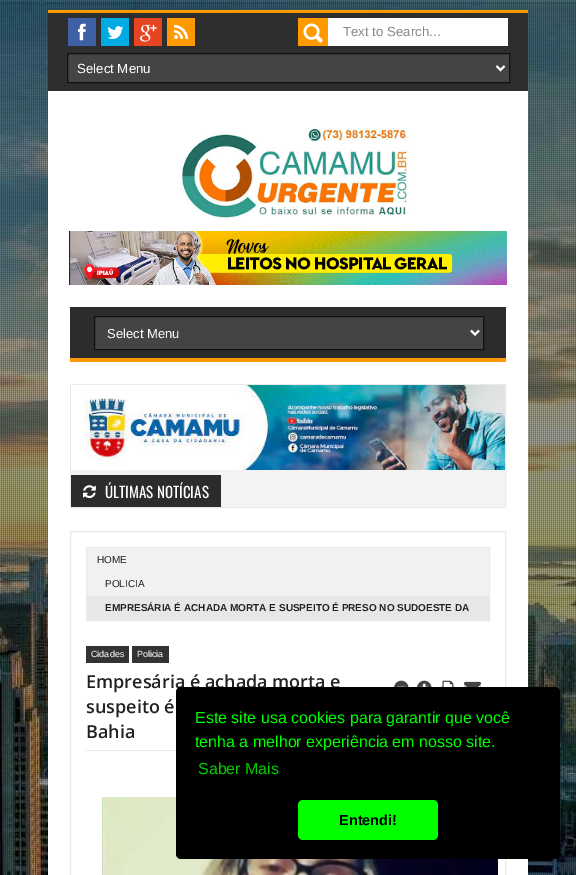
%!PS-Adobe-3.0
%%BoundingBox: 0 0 576 875
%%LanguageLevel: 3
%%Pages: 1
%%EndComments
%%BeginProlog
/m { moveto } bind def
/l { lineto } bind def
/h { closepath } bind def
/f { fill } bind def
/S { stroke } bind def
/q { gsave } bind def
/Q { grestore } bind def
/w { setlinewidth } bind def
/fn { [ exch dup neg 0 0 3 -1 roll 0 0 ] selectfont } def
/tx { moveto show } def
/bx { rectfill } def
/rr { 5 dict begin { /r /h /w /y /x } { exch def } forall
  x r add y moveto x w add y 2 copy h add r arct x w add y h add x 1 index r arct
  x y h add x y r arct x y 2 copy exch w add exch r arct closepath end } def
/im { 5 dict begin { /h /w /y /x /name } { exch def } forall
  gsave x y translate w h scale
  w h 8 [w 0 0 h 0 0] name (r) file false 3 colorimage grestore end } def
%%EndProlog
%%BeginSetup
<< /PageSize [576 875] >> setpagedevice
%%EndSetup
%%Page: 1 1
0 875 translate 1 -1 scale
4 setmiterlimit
1 setgray
0 0 576 875 bx
(image0.raw) 0 0 576 875 im
(image1.raw) 1 0 575 875 im
48 91 480 784 bx
1 0.6 0 setrgbcolor
48 10 480 3 bx
0.18 setgray
48 13 480 78 bx
0.251 0.376 0.647 setrgbcolor
68 18 28 28 bx
(image2.raw) 78 23 8 18 im
0 0.671 0.89 setrgbcolor
101 18 28 28 bx
(image3.raw) 107 26 17 13 im
0.902 0.271 0.133 setrgbcolor
134 18 28 28 bx
(image4.raw) 140 24 17 18 im
1 0.6 0 setrgbcolor
167 18 28 28 bx
(image5.raw) 174 24 15 15 im
298 18 30 28 bx
(image6.raw) 303 23 20 20 im
1 setgray
328 18 180 28 bx
/LiberationSans-Regular 13.25 fn
0.533 setgray
(Text to Search...) 343 36 tx
0.267 setgray
67.5 53.5 m 509.5 53.5 l 509.5 82.5 l 67.5 82.5 l h q f Q
0.067 setgray
S
1 setgray
2 w
496.5 66 m 500.5 70 l 504.5 66 l S
(Select Menu) 77 73 tx
(image7.raw) 181 128 228 91 im
(image8.raw) 69 231 438 54 im
0.173 setgray
70 307 436 51 bx
1 0.6 0 setrgbcolor
70 358 436 4 bx
0.267 setgray
94.5 316.5 m 483.5 316.5 l 483.5 349.5 l 94.5 349.5 l h q f Q
0.067 setgray
1 w
S
1 setgray
2 w
471 330.5 m 475 334.5 l 479 330.5 l S
/LiberationSans-Regular 13 fn
(Select Menu) 107 338 tx
0.953 setgray
71 470 434 37 bx
0.918 setgray
1 w
70.5 384.5 435 123 rectstroke
(image9.raw) 71 385 434 85 im
0.173 setgray
71 475 150 32 bx
(image10.raw) 83 485 13 14 im
/Oswald-Regular 15 fn
1 setgray
(ÚLTIMAS NOTÍCIAS) 105 498 tx
0.918 setgray
70.5 531.5 435 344 rectstroke
86.5 547.5 403 73 rectstroke
0.945 setgray
87 548 402 48 bx
/LiberationSans-Regular 10 fn
0.133 setgray
(HOME) 97 563 tx
(POLICIA) 105 587 tx
0.906 setgray
87 596 402 24 bx
/LiberationSans-Bold 10 fn
0.133 setgray
(EMPRESÁRIA É ACHADA MORTA E SUSPEITO É PRESO NO SUDOESTE DA) 105 611 tx
0.2 setgray
86 646 43 17 bx
/LiberationSans-Regular 9 fn
1 setgray
(Cidades) 91 657 tx
0.2 setgray
132 646 37 17 bx
1 setgray
(Policia) 137 657 tx
0.918 setgray
86 750 90 1 bx
/OpenSans-SemiBold 18 fn
0.133 setgray
(Empresária é achada morta e) 86 688 tx
(image11.raw) 394 680 15 7 im
(image12.raw) 417 680 15 7 im
(image13.raw) 441 680 14 7 im
(image14.raw) 464 681 17 6 im
(suspeito é) 86 713 tx
(Bahia) 86 738 tx
(image15.raw) 102 797 396 78 im
0 setgray
176 687 384 172 5 rr f
/LiberationSans-Regular 16 fn
0 1 0 setrgbcolor
(Este site usa cookies para garantir que você) 195 723 tx
(tenha a melhor experiência em nosso site.) 195 747 tx
0 0.8 0 setrgbcolor
(Saber Mais) 198 774 tx
0 1 0 setrgbcolor
298 800 140 40 5 rr f
/LiberationSans-Bold 14.5 fn
0 setgray
(Entendi!) 339 825 tx
showpage
%%EOF
